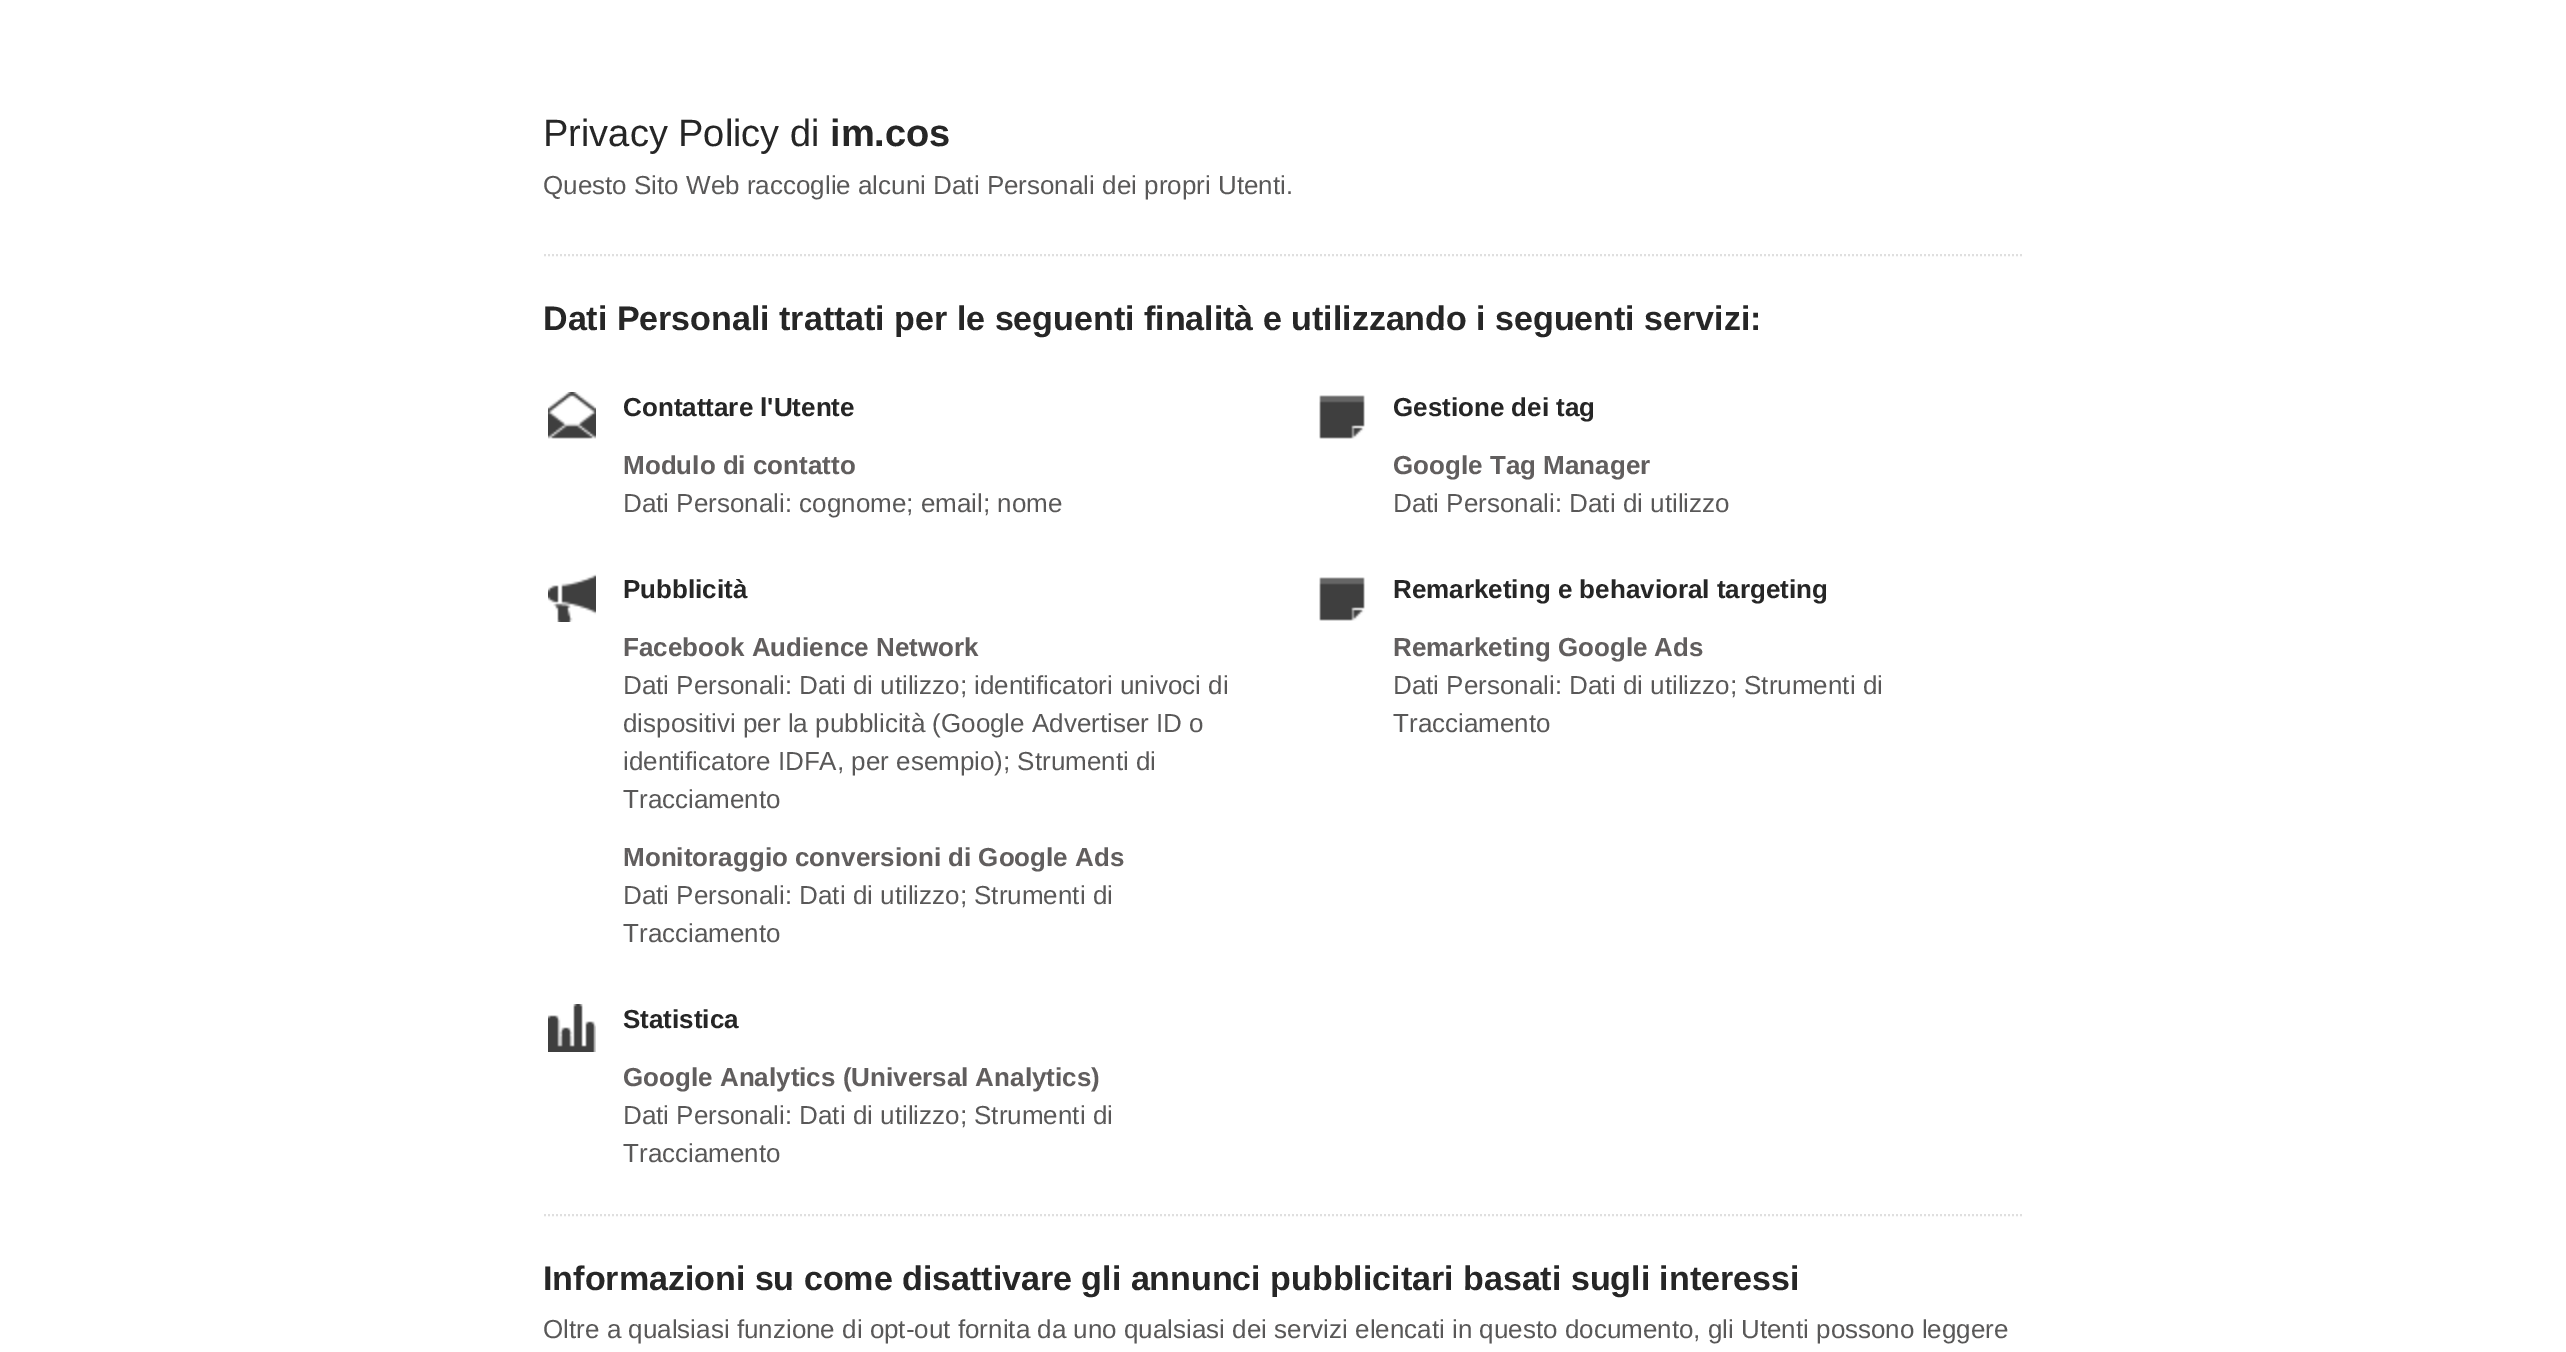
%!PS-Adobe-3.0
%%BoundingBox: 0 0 2566 1352
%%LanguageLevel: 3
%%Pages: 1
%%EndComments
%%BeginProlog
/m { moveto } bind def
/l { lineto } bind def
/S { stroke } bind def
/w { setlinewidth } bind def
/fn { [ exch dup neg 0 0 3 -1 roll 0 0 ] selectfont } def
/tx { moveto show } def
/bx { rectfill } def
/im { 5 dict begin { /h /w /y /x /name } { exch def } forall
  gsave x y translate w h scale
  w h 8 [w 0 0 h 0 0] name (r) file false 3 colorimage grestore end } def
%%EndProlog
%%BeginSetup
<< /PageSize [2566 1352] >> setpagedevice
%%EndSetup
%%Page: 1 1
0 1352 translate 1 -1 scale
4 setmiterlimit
1 setgray
0 0 2566 1352 bx
0.875 setgray
2 w
[2 2] 0 setdash
544 255 m 2024 255 l S
/LiberationSans-Regular 38 fn
0.149 setgray
(Privacy Policy di) 543 146 tx
/LiberationSans-Bold 38 fn
(im.cos) 830 146 tx
/LiberationSans-Regular 26 fn
0.349 0.345 0.345 setrgbcolor
(Questo Sito Web raccoglie alcuni Dati Personali dei propri Utenti.) 543 194 tx
/LiberationSans-Bold 34 fn
0.149 setgray
(Dati Personali trattati per le seguenti finalità e utilizzando i seguenti servizi:) 543 330 tx
0.875 setgray
544 1215 m 2024 1215 l S
(image0.raw) 548 392 48 47 im
/LiberationSans-Bold 26 fn
0.149 setgray
(Contattare l'Utente) 623 416 tx
0.38 0.369 0.369 setrgbcolor
(Modulo di contatto) 623 474 tx
/LiberationSans-Regular 26 fn
0.349 0.345 0.345 setrgbcolor
(Dati Personali: cognome; email; nome) 623 512 tx
(image1.raw) 1319 395 46 44 im
/LiberationSans-Bold 26 fn
0.149 setgray
(Gestione dei tag) 1393 416 tx
0.38 0.369 0.369 setrgbcolor
(Google Tag Manager) 1393 474 tx
/LiberationSans-Regular 26 fn
0.349 0.345 0.345 setrgbcolor
(Dati Personali: Dati di utilizzo) 1393 512 tx
(image2.raw) 548 574 48 48 im
/LiberationSans-Bold 26 fn
0.149 setgray
(Pubblicità) 623 598 tx
0.38 0.369 0.369 setrgbcolor
(Facebook Audience Network) 623 656 tx
/LiberationSans-Regular 26 fn
0.349 0.345 0.345 setrgbcolor
(Dati Personali: Dati di utilizzo; identificatori univoci di) 623 694 tx
(dispositivi per la pubblicità \(Google Advertiser ID o) 623 732 tx
(identificatore IDFA, per esempio\); Strumenti di) 623 770 tx
(Tracciamento) 623 808 tx
/LiberationSans-Bold 26 fn
0.38 0.369 0.369 setrgbcolor
(Monitoraggio conversioni di Google Ads) 623 866 tx
/LiberationSans-Regular 26 fn
0.349 0.345 0.345 setrgbcolor
(Dati Personali: Dati di utilizzo; Strumenti di) 623 904 tx
(Tracciamento) 623 942 tx
(image1.raw) 1319 577 46 44 im
/LiberationSans-Bold 26 fn
0.149 setgray
(Remarketing e behavioral targeting) 1393 598 tx
0.38 0.369 0.369 setrgbcolor
(Remarketing Google Ads) 1393 656 tx
/LiberationSans-Regular 26 fn
0.349 0.345 0.345 setrgbcolor
(Dati Personali: Dati di utilizzo; Strumenti di) 1393 694 tx
(Tracciamento) 1393 732 tx
(image3.raw) 548 1004 48 48 im
/LiberationSans-Bold 26 fn
0.149 setgray
(Statistica) 623 1028 tx
0.38 0.369 0.369 setrgbcolor
(Google Analytics \(Universal Analytics\)) 623 1086 tx
/LiberationSans-Regular 26 fn
0.349 0.345 0.345 setrgbcolor
(Dati Personali: Dati di utilizzo; Strumenti di) 623 1124 tx
(Tracciamento) 623 1162 tx
/LiberationSans-Bold 34 fn
0.149 setgray
(Informazioni su come disattivare gli annunci pubblicitari basati sugli interessi) 543 1290 tx
/LiberationSans-Regular 26 fn
0.349 0.345 0.345 setrgbcolor
(Oltre a qualsiasi funzione di opt-out fornita da uno qualsiasi dei servizi elencati in questo documento, gli Utenti possono leggere) 543 1338 tx
showpage
%%EOF
